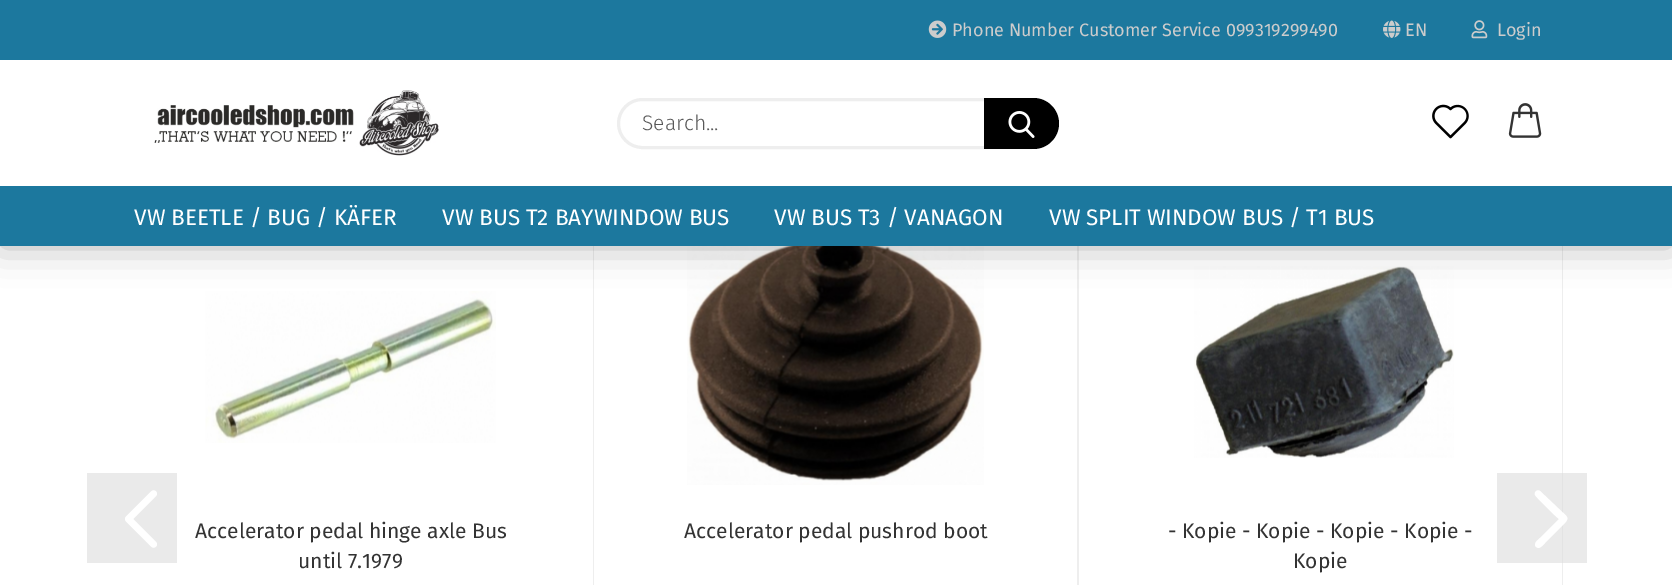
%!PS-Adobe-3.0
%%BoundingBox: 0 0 1672 585
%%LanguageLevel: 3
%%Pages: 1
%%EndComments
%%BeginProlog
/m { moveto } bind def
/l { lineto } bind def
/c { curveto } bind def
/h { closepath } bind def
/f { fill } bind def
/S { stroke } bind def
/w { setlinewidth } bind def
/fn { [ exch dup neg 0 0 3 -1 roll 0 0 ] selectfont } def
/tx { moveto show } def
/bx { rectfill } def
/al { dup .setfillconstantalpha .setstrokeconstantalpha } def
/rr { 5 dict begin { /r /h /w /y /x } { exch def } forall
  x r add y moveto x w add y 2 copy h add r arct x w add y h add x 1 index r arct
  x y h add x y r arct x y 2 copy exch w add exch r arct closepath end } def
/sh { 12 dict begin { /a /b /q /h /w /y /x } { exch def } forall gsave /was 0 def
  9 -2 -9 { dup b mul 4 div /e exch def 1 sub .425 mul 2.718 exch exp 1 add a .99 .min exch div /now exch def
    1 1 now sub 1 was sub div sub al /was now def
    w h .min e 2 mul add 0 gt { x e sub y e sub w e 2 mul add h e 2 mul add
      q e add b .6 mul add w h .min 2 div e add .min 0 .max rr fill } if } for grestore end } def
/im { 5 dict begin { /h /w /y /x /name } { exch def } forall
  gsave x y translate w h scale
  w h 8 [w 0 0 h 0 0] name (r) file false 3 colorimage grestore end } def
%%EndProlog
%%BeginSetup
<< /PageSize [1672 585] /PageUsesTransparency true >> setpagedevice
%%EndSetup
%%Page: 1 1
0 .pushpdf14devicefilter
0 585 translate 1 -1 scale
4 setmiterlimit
1 setgray
0 0 1672 585 bx
0.918 setgray
1497 473 90 90 bx
0.933 setgray
593 246 1 339 bx
(image8.raw) 205 291 291 152 im
1077 246 2 339 bx
(image9.raw) 687 246 297 239 im
1562 246 1 339 bx
(image10.raw) 1194 266 260 192 im
0 setgray
0 0 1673 246 0 19 0.3 sh
1 setgray
0 60 1672 126 bx
0.11 0.471 0.62 setrgbcolor
0 0 1672 60 bx
(image0.raw) 928 20 19 18 im
/FiraSans-Regular 18 fn
0.8 setgray
(Phone Number Customer Service 099319299490) 952 36 tx
(image1.raw) 1383 20 18 18 im
(EN) 1405 36 tx
(image2.raw) 1471 20 17 19 im
(Login) 1497 36 tx
(image3.raw) 154 90 285 66 im
0.933 setgray
3 w
618.5 99.5 436 48 24 rr S
/FiraSans-Light 21 fn
0.349 setgray
(Search...) 642 130 tx
0 setgray
984 98 m 1033.5 98 l 1047.5 98 1059 109.5 1059 123.5 c 1059 137.5 1047.5 149 1033.5 149 c 984 149 l h f
(image4.raw) 1008 111 27 27 im
(image5.raw) 1432 104 37 35 im
(image6.raw) 1508 103 34 35 im
0.11 0.471 0.62 setrgbcolor
0 186 1672 60 bx
/FiraSans-Regular 22.5 fn
1 setgray
(VW BEETLE / BUG / KÄFER) 134 225 tx
(VW BUS T2 BAYWINDOW BUS) 442 225 tx
(VW BUS T3 / VANAGON) 774 225 tx
(VW SPLIT WINDOW BUS / T1 BUS) 1049 225 tx
0.918 setgray
87 473 90 90 bx
(image7.raw) 125 490 32 58 im
/FiraSans-Regular 21 fn
0.2 setgray
(Accelerator pedal hinge axle Bus) 195 538 tx
(until 7.1979) 298 568 tx
(Accelerator pedal pushrod boot) 684 538 tx
0.89 setgray
1562 473 1 90 bx
0.2 setgray
(- Kopie - Kopie - Kopie - Kopie -) 1168 538 tx
(Kopie) 1293 568 tx
1 setgray
1563 473 2 90 bx
0.918 setgray
1563 473 2 90 bx
1 setgray
1538 548 m 1536 547 l 1533 543 1538 540 1540 538 c 1559 519 l 1555 516 1536 497 1535 495 c 1534 492 1537 489 1540 491 c 1558 508 l 1568 518 1571 517 1562 526 c 1545 543 l 1544 544 1541 548 1538 548 c h f
.poppdf14devicefilter showpage
%%EOF
